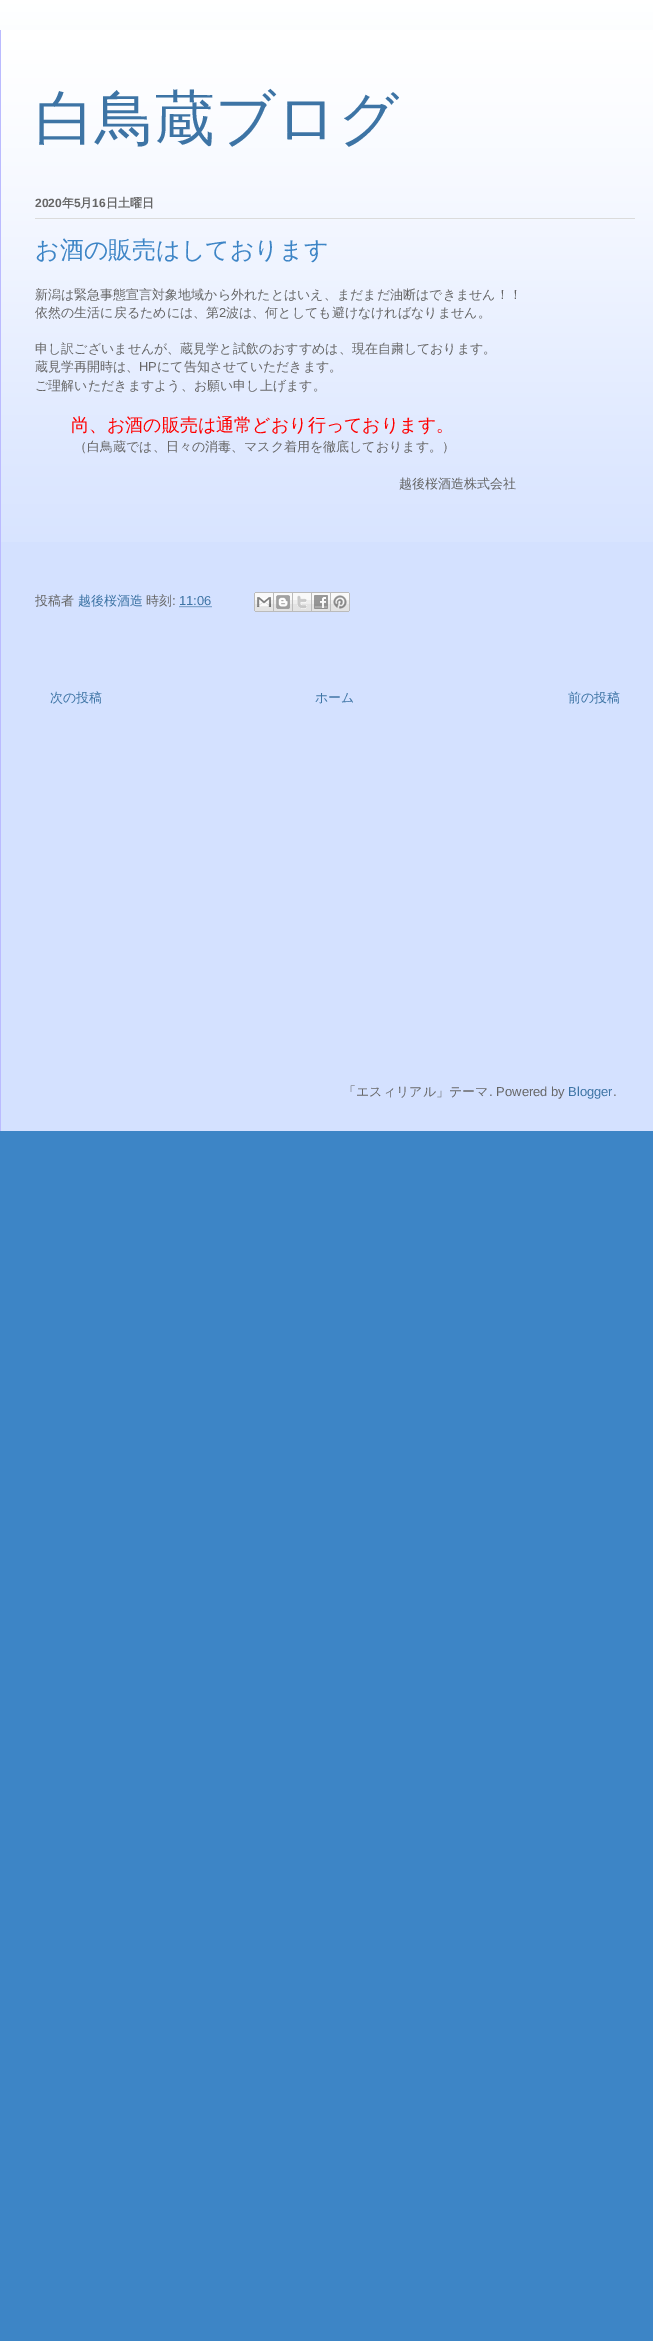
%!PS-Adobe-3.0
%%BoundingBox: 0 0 653 2341
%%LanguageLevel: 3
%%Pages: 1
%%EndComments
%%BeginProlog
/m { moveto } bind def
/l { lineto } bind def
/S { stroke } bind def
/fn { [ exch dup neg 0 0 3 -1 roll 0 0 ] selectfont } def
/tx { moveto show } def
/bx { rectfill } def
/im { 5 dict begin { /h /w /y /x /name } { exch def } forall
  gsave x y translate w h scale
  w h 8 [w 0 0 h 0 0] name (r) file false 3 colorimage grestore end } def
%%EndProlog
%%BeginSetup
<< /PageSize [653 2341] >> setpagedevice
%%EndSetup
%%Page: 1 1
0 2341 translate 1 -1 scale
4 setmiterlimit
0.239 0.522 0.776 setrgbcolor
0 0 653 2341 bx
(image0.raw) 0 0 653 30 im
0.831 0.882 1 setrgbcolor
1 37 652 1094 bx
(image1.raw) 1 30 652 512 im
0.733 0.733 1 setrgbcolor
0 30 1 1101 bx
/WenQuanYiZenHei-Medium 60 fn
0.239 0.455 0.647 setrgbcolor
(白鳥蔵ブログ) 35 139 tx
0.859 setgray
35 218 600 1 bx
/LiberationSans-Bold 12 fn
0.4 setgray
(2020) 35 207 tx
/WenQuanYiZenHei-Bold 12 fn
(年) 62 207 tx
/LiberationSans-Bold 12 fn
(5) 74 207 tx
/WenQuanYiZenHei-Bold 12 fn
(月) 80 207 tx
/LiberationSans-Bold 12 fn
(16) 92 207 tx
/WenQuanYiZenHei-Bold 12 fn
(日土曜日) 106 207 tx
/WenQuanYiZenHei-Medium 24 fn
0.239 0.522 0.776 setrgbcolor
(お酒の販売はしております) 35 258 tx
/WenQuanYiZenHei-Medium 13 fn
0.4 setgray
(新潟は緊急事態宣言対象地域から外れたとはいえ、まだまだ油断はできません！！) 35 299 tx
(依然の生活に戻るためには、第) 35 317 tx
/LiberationSans-Regular 13 fn
(2) 219 317 tx
/WenQuanYiZenHei-Medium 13 fn
(波は、何としても避けなければなりません。) 226 317 tx
(申し訳ございませんが、蔵見学と試飲のおすすめは、現在自粛しております。) 35 353 tx
(蔵見学再開時は、) 35 371 tx
/LiberationSans-Regular 13 fn
(HP) 139 371 tx
/WenQuanYiZenHei-Medium 13 fn
(にて告知させていただきます。) 157 371 tx
(ご理解いただきますよう、お願い申し上げます。) 35 390 tx
/WenQuanYiZenHei-Medium 18 fn
1 0 0 setrgbcolor
(尚、お酒の販売は通常どおり行っております。) 71 431 tx
/WenQuanYiZenHei-Medium 13 fn
0.4 setgray
(（白鳥蔵では、日々の消毒、マスク着用を徹底しております。）) 74 451 tx
(越後桜酒造株式会社) 399 488 tx
(投稿者) 35 605 tx
0.239 0.455 0.647 setrgbcolor
(越後桜酒造) 78 605 tx
0.4 setgray
(時刻) 146 605 tx
/LiberationSans-Regular 13 fn
(:) 172 605 tx
0.239 0.455 0.647 setrgbcolor
(11:06) 179 605 tx
[1 1] 0 setdash
179.5 606.5 m 212 606.5 l S
(image2.raw) 254 592 20 20 im
(image3.raw) 274 592 19 20 im
(image4.raw) 293 592 19 20 im
(image5.raw) 312 592 19 20 im
(image6.raw) 331 592 19 20 im
/WenQuanYiZenHei-Medium 13 fn
(次の投稿) 50 702 tx
(ホーム) 315 702 tx
(前の投稿) 568 702 tx
0.4 setgray
(「エスィリアル」テーマ) 343 1096 tx
/LiberationSans-Regular 13 fn
(. Powered by) 489 1096 tx
0.239 0.455 0.647 setrgbcolor
(Blogger) 568 1096 tx
0.4 setgray
(.) 613 1096 tx
showpage
%%EOF
